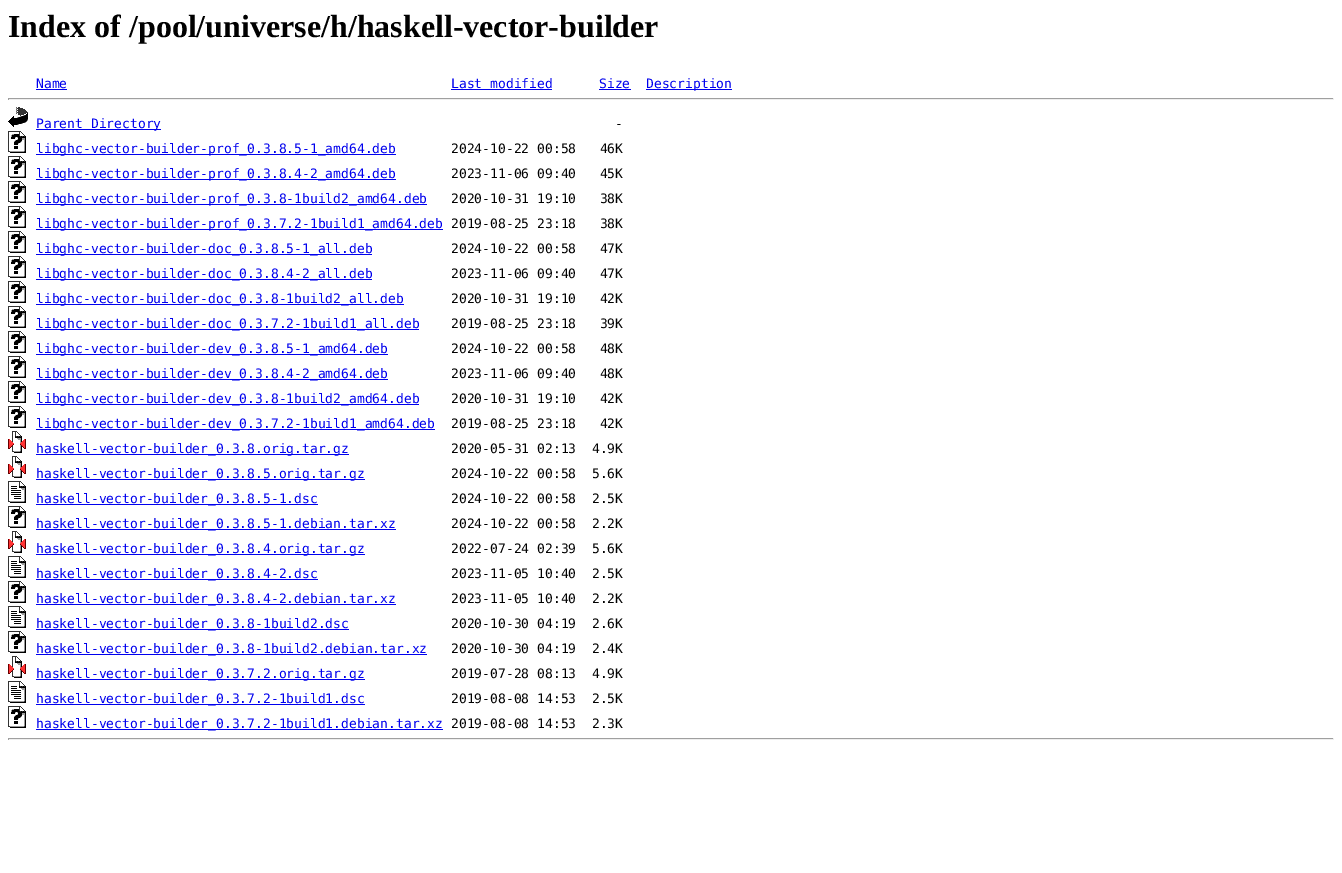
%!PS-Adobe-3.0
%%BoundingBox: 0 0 1342 873
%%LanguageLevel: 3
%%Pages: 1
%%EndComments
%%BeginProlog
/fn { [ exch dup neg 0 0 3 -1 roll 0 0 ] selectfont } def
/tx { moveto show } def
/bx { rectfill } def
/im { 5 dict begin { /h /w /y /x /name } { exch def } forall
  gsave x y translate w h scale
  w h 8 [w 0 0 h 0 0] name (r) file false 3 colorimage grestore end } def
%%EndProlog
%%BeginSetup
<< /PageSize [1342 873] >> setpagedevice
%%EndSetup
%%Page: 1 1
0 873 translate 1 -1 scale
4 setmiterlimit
1 setgray
0 0 1342 873 bx
/LiberationSerif-Bold 32 fn
0 setgray
(Index of /pool/universe/h/haskell-vector-builder) 8 37 tx
/DejaVuSansMono-Regular 13 fn
0 0 0.933 setrgbcolor
(Name) 36 88 tx
36 89 31 1 bx
(Last modified) 451 88 tx
451 89 101 1 bx
(Size) 599 88 tx
599 89 32 1 bx
646 89 86 1 bx
(Description) 646 88 tx
0.624 setgray
8 98 1326 1 bx
0.933 setgray
1333 98 1 2 bx
8 99 1326 1 bx
0.624 setgray
8 98 1 2 bx
(image0.raw) 8 107 20 20 im
0 0 0.933 setrgbcolor
36 129 125 1 bx
(Parent Directory) 36 128 tx
0 setgray
(-) 615 128 tx
(image1.raw) 8 131 18 22 im
0 0 0.933 setrgbcolor
36 154 360 1 bx
(libghc-vector-builder-prof_0.3.8.5-1_amd64.deb) 36 153 tx
0 setgray
(2024-10-22 00:58   46K) 451 153 tx
(image1.raw) 8 156 18 22 im
0 0 0.933 setrgbcolor
36 179 360 1 bx
(libghc-vector-builder-prof_0.3.8.4-2_amd64.deb) 36 178 tx
0 setgray
(2023-11-06 09:40   45K) 451 178 tx
(image1.raw) 8 181 18 22 im
0 0 0.933 setrgbcolor
36 204 391 1 bx
(libghc-vector-builder-prof_0.3.8-1build2_amd64.deb) 36 203 tx
0 setgray
(2020-10-31 19:10   38K) 451 203 tx
(image1.raw) 8 206 18 22 im
0 0 0.933 setrgbcolor
36 229 407 1 bx
(libghc-vector-builder-prof_0.3.7.2-1build1_amd64.deb) 36 228 tx
0 setgray
(2019-08-25 23:18   38K) 451 228 tx
(image1.raw) 8 231 18 22 im
0 0 0.933 setrgbcolor
36 254 336 1 bx
(libghc-vector-builder-doc_0.3.8.5-1_all.deb) 36 253 tx
0 setgray
(2024-10-22 00:58   47K) 451 253 tx
(image1.raw) 8 256 18 22 im
0 0 0.933 setrgbcolor
36 279 336 1 bx
(libghc-vector-builder-doc_0.3.8.4-2_all.deb) 36 278 tx
0 setgray
(2023-11-06 09:40   47K) 451 278 tx
(image1.raw) 8 281 18 22 im
0 0 0.933 setrgbcolor
36 304 368 1 bx
(libghc-vector-builder-doc_0.3.8-1build2_all.deb) 36 303 tx
0 setgray
(2020-10-31 19:10   42K) 451 303 tx
(image1.raw) 8 306 18 22 im
0 0 0.933 setrgbcolor
36 329 383 1 bx
(libghc-vector-builder-doc_0.3.7.2-1build1_all.deb) 36 328 tx
0 setgray
(2019-08-25 23:18   39K) 451 328 tx
(image1.raw) 8 331 18 22 im
0 0 0.933 setrgbcolor
36 354 352 1 bx
(libghc-vector-builder-dev_0.3.8.5-1_amd64.deb) 36 353 tx
0 setgray
(2024-10-22 00:58   48K) 451 353 tx
(image1.raw) 8 356 18 22 im
0 0 0.933 setrgbcolor
36 379 352 1 bx
(libghc-vector-builder-dev_0.3.8.4-2_amd64.deb) 36 378 tx
0 setgray
(2023-11-06 09:40   48K) 451 378 tx
(image1.raw) 8 381 18 22 im
0 0 0.933 setrgbcolor
36 404 383 1 bx
(libghc-vector-builder-dev_0.3.8-1build2_amd64.deb) 36 403 tx
0 setgray
(2020-10-31 19:10   42K) 451 403 tx
(image1.raw) 8 406 18 22 im
0 0 0.933 setrgbcolor
36 429 399 1 bx
(libghc-vector-builder-dev_0.3.7.2-1build1_amd64.deb) 36 428 tx
0 setgray
(2019-08-25 23:18   42K) 451 428 tx
(image2.raw) 8 431 18 22 im
0 0 0.933 setrgbcolor
36 454 313 1 bx
(haskell-vector-builder_0.3.8.orig.tar.gz) 36 453 tx
0 setgray
(2020-05-31 02:13  4.9K) 451 453 tx
(image2.raw) 8 456 18 22 im
0 0 0.933 setrgbcolor
36 479 329 1 bx
(haskell-vector-builder_0.3.8.5.orig.tar.gz) 36 478 tx
0 setgray
(2024-10-22 00:58  5.6K) 451 478 tx
(image3.raw) 8 481 18 22 im
0 0 0.933 setrgbcolor
36 504 282 1 bx
(haskell-vector-builder_0.3.8.5-1.dsc) 36 503 tx
0 setgray
(2024-10-22 00:58  2.5K) 451 503 tx
(image1.raw) 8 506 18 22 im
0 0 0.933 setrgbcolor
36 529 360 1 bx
(haskell-vector-builder_0.3.8.5-1.debian.tar.xz) 36 528 tx
0 setgray
(2024-10-22 00:58  2.2K) 451 528 tx
(image2.raw) 8 531 18 22 im
0 0 0.933 setrgbcolor
36 554 329 1 bx
(haskell-vector-builder_0.3.8.4.orig.tar.gz) 36 553 tx
0 setgray
(2022-07-24 02:39  5.6K) 451 553 tx
(image3.raw) 8 556 18 22 im
0 0 0.933 setrgbcolor
36 579 282 1 bx
(haskell-vector-builder_0.3.8.4-2.dsc) 36 578 tx
0 setgray
(2023-11-05 10:40  2.5K) 451 578 tx
(image1.raw) 8 581 18 22 im
0 0 0.933 setrgbcolor
36 604 360 1 bx
(haskell-vector-builder_0.3.8.4-2.debian.tar.xz) 36 603 tx
0 setgray
(2023-11-05 10:40  2.2K) 451 603 tx
(image3.raw) 8 606 18 22 im
0 0 0.933 setrgbcolor
36 629 313 1 bx
(haskell-vector-builder_0.3.8-1build2.dsc) 36 628 tx
0 setgray
(2020-10-30 04:19  2.6K) 451 628 tx
(image1.raw) 8 631 18 22 im
0 0 0.933 setrgbcolor
36 654 391 1 bx
(haskell-vector-builder_0.3.8-1build2.debian.tar.xz) 36 653 tx
0 setgray
(2020-10-30 04:19  2.4K) 451 653 tx
(image2.raw) 8 656 18 22 im
0 0 0.933 setrgbcolor
36 679 329 1 bx
(haskell-vector-builder_0.3.7.2.orig.tar.gz) 36 678 tx
0 setgray
(2019-07-28 08:13  4.9K) 451 678 tx
(image3.raw) 8 681 18 22 im
0 0 0.933 setrgbcolor
36 704 329 1 bx
(haskell-vector-builder_0.3.7.2-1build1.dsc) 36 703 tx
0 setgray
(2019-08-08 14:53  2.5K) 451 703 tx
(image1.raw) 8 706 18 22 im
0 0 0.933 setrgbcolor
36 729 407 1 bx
(haskell-vector-builder_0.3.7.2-1build1.debian.tar.xz) 36 728 tx
0 setgray
(2019-08-08 14:53  2.3K) 451 728 tx
0.624 setgray
8 738 1326 1 bx
0.933 setgray
1333 738 1 2 bx
8 739 1326 1 bx
0.624 setgray
8 738 1 2 bx
showpage
%%EOF
